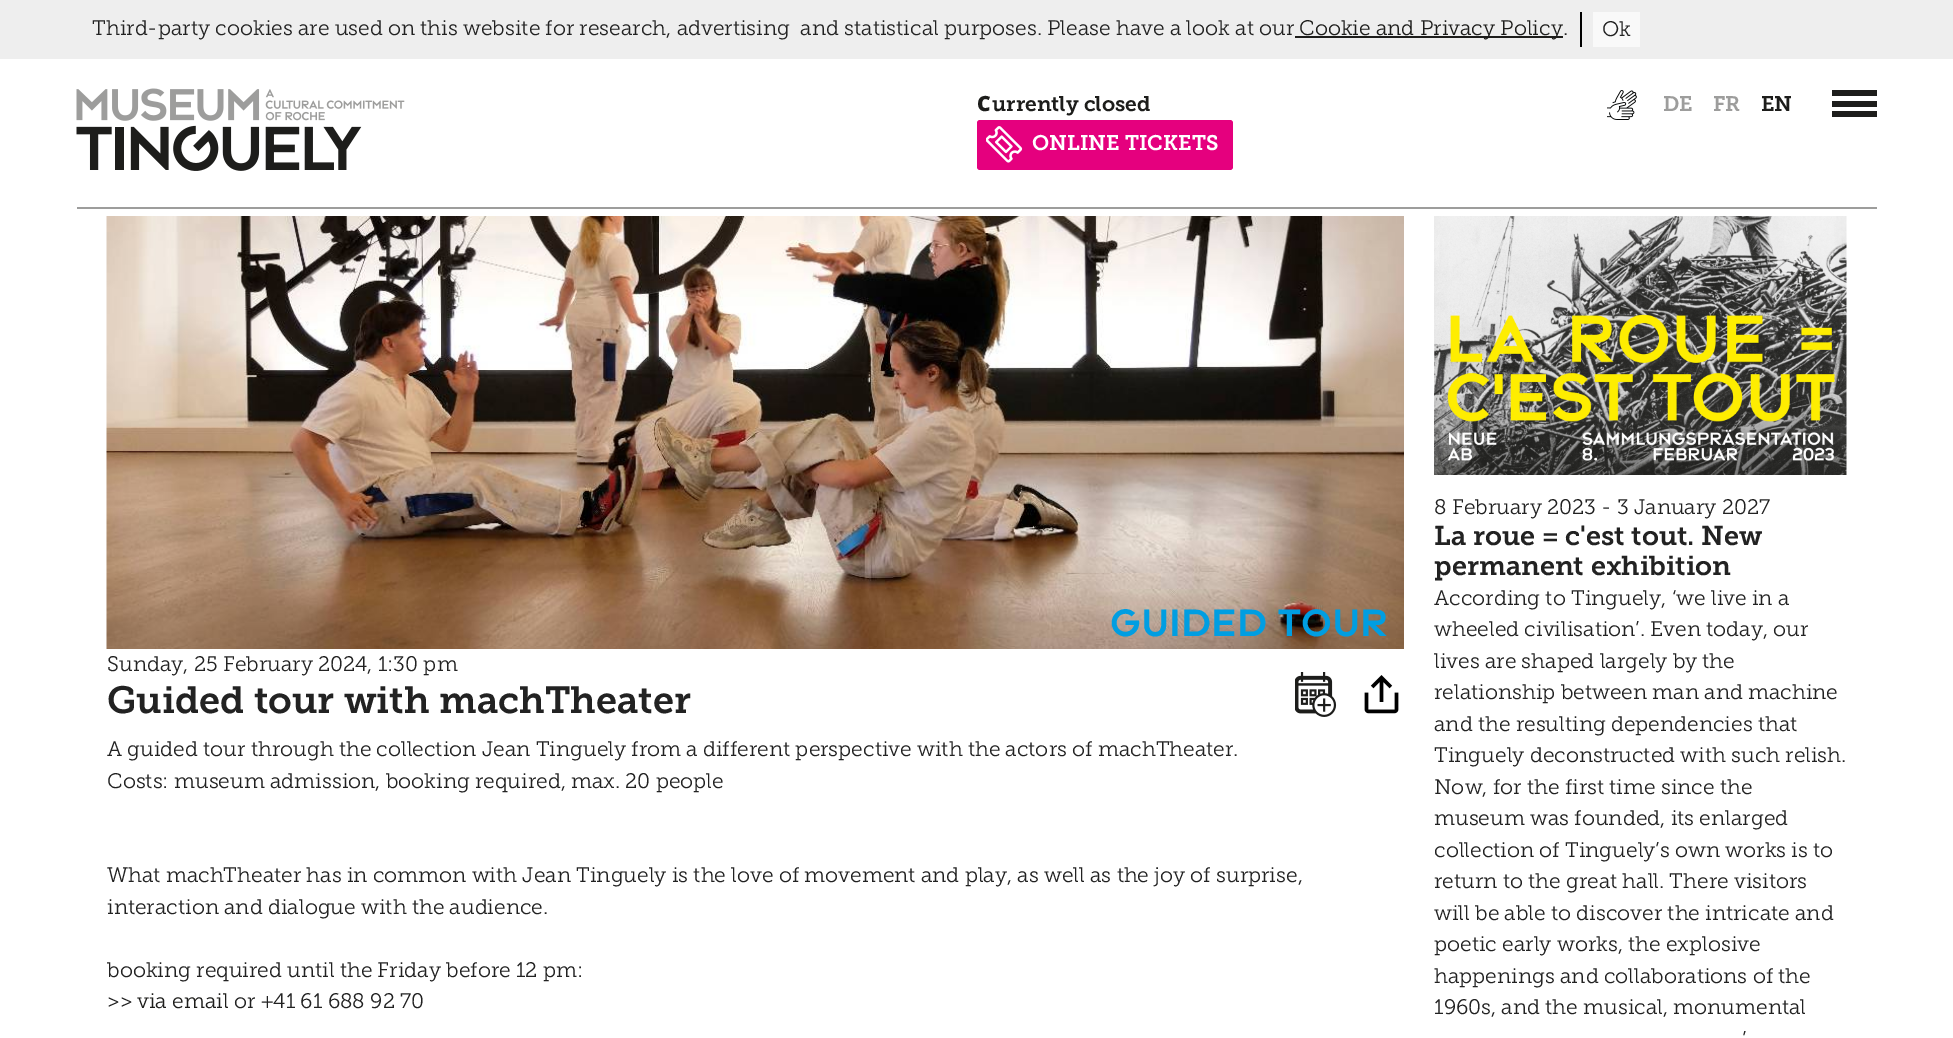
%!PS-Adobe-3.0
%%BoundingBox: 0 0 1953 1038
%%LanguageLevel: 3
%%Pages: 1
%%EndComments
%%BeginProlog
/f { fill } bind def
/fn { [ exch dup neg 0 0 3 -1 roll 0 0 ] selectfont } def
/tx { moveto show } def
/bx { rectfill } def
/rr { 5 dict begin { /r /h /w /y /x } { exch def } forall
  x r add y moveto x w add y 2 copy h add r arct x w add y h add x 1 index r arct
  x y h add x y r arct x y 2 copy exch w add exch r arct closepath end } def
/im { 5 dict begin { /h /w /y /x /name } { exch def } forall
  gsave x y translate w h scale
  w h 8 [w 0 0 h 0 0] name (r) file false 3 colorimage grestore end } def
%%EndProlog
%%BeginSetup
<< /PageSize [1953 1038] >> setpagedevice
%%EndSetup
%%Page: 1 1
0 1038 translate 1 -1 scale
4 setmiterlimit
1 setgray
0 0 1953 1038 bx
0.933 setgray
0 0 1953 59 bx
/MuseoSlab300-Light 21 fn
0.133 setgray
(Third-party cookies are used on this website for research, advertising  and statistical purposes. Please have a look at our) 92 35 tx
0.114 0.114 0.106 setrgbcolor
1295 36 268 2 bx
(Cookie and Privacy Policy) 1299 35 tx
0.133 setgray
(.) 1563 35 tx
0 setgray
1580 12 2 35 bx
0.976 setgray
1593 12 47 35 bx
0.133 setgray
(Ok) 1602 36 tx
0.616 0.616 0.612 setrgbcolor
77 207 1800 2 bx
(image0.raw) 76 88 329 83 im
/NotoSans-Black 21 fn
0.114 0.114 0.106 setrgbcolor
(C) 977 111 tx
/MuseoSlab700-SemiBold 21 fn
(urrently closed) 992 111 tx
0.898 0 0.494 setrgbcolor
977 120 256 50 3 rr f
(image1.raw) 986 126 37 37 im
1 setgray
(ONLINE TICKETS) 1032 150 tx
(image2.raw) 1607 90 30 30 im
0.616 0.616 0.612 setrgbcolor
(DE) 1663 111 tx
(FR) 1713 111 tx
0.114 0.114 0.106 setrgbcolor
(EN) 1761 111 tx
1832 101 45 6 bx
1832 90 45 6 bx
1832 111 45 6 bx
(image3.raw) 106 216 1298 433 im
/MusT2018-Medium 42 fn
0 0.62 0.886 setrgbcolor
(guided tour) 1110 636 tx
/MuseoSlab300-Light 21 fn
0.133 setgray
(Sunday, 25 February 2024, 1:30 pm) 107 671 tx
/MuseoSlab700-SemiBold 37.75 fn
(Guided tour with machTheater) 107 713 tx
(image4.raw) 1295 672 42 45 im
(image5.raw) 1364 675 35 39 im
/MuseoSlab300-Light 21 fn
(A guided tour through the collection Jean Tinguely from a different perspective with the actors of machTheater.) 107 756 tx
(Costs: museum admission, booking required, max. 20 people) 107 788 tx
(What machTheater has in common with Jean Tinguely is the love of movement and play, as well as the joy of surprise,) 107 882 tx
(interaction and dialogue with the audience.) 107 914 tx
(booking required until the Friday before 12 pm:) 107 977 tx
(>>) 107 1008 tx
0.114 0.114 0.106 setrgbcolor
(via email) 137 1008 tx
0.133 setgray
(or +41 61 688 92 70) 234 1008 tx
(image6.raw) 1434 216 413 259 im
(8 February 2023 - 3 January 2027) 1434 514 tx
/MuseoSlab700-SemiBold 27 fn
(La roue = c'est tout. New) 1434 545 tx
(permanent exhibition) 1434 575 tx
/MuseoSlab300-Light 21 fn
(According to Tinguely, ‘we live in a) 1434 605 tx
(wheeled civilisation’. Even today, our) 1434 636 tx
(lives are shaped largely by the) 1434 668 tx
(relationship between man and machine) 1434 699 tx
(and the resulting dependencies that) 1434 731 tx
(Tinguely deconstructed with such relish.) 1434 762 tx
(Now, for the first time since the) 1434 794 tx
(museum was founded, its enlarged) 1434 825 tx
(collection of Tinguely’s own works is to) 1434 857 tx
(return to the great hall. There visitors) 1434 888 tx
(will be able to discover the intricate and) 1434 920 tx
(poetic early works, the explosive) 1434 951 tx
(happenings and collaborations of the) 1434 983 tx
(1960s, and the musical, monumental) 1434 1014 tx
(’) 1742 1046 tx
showpage
%%EOF
